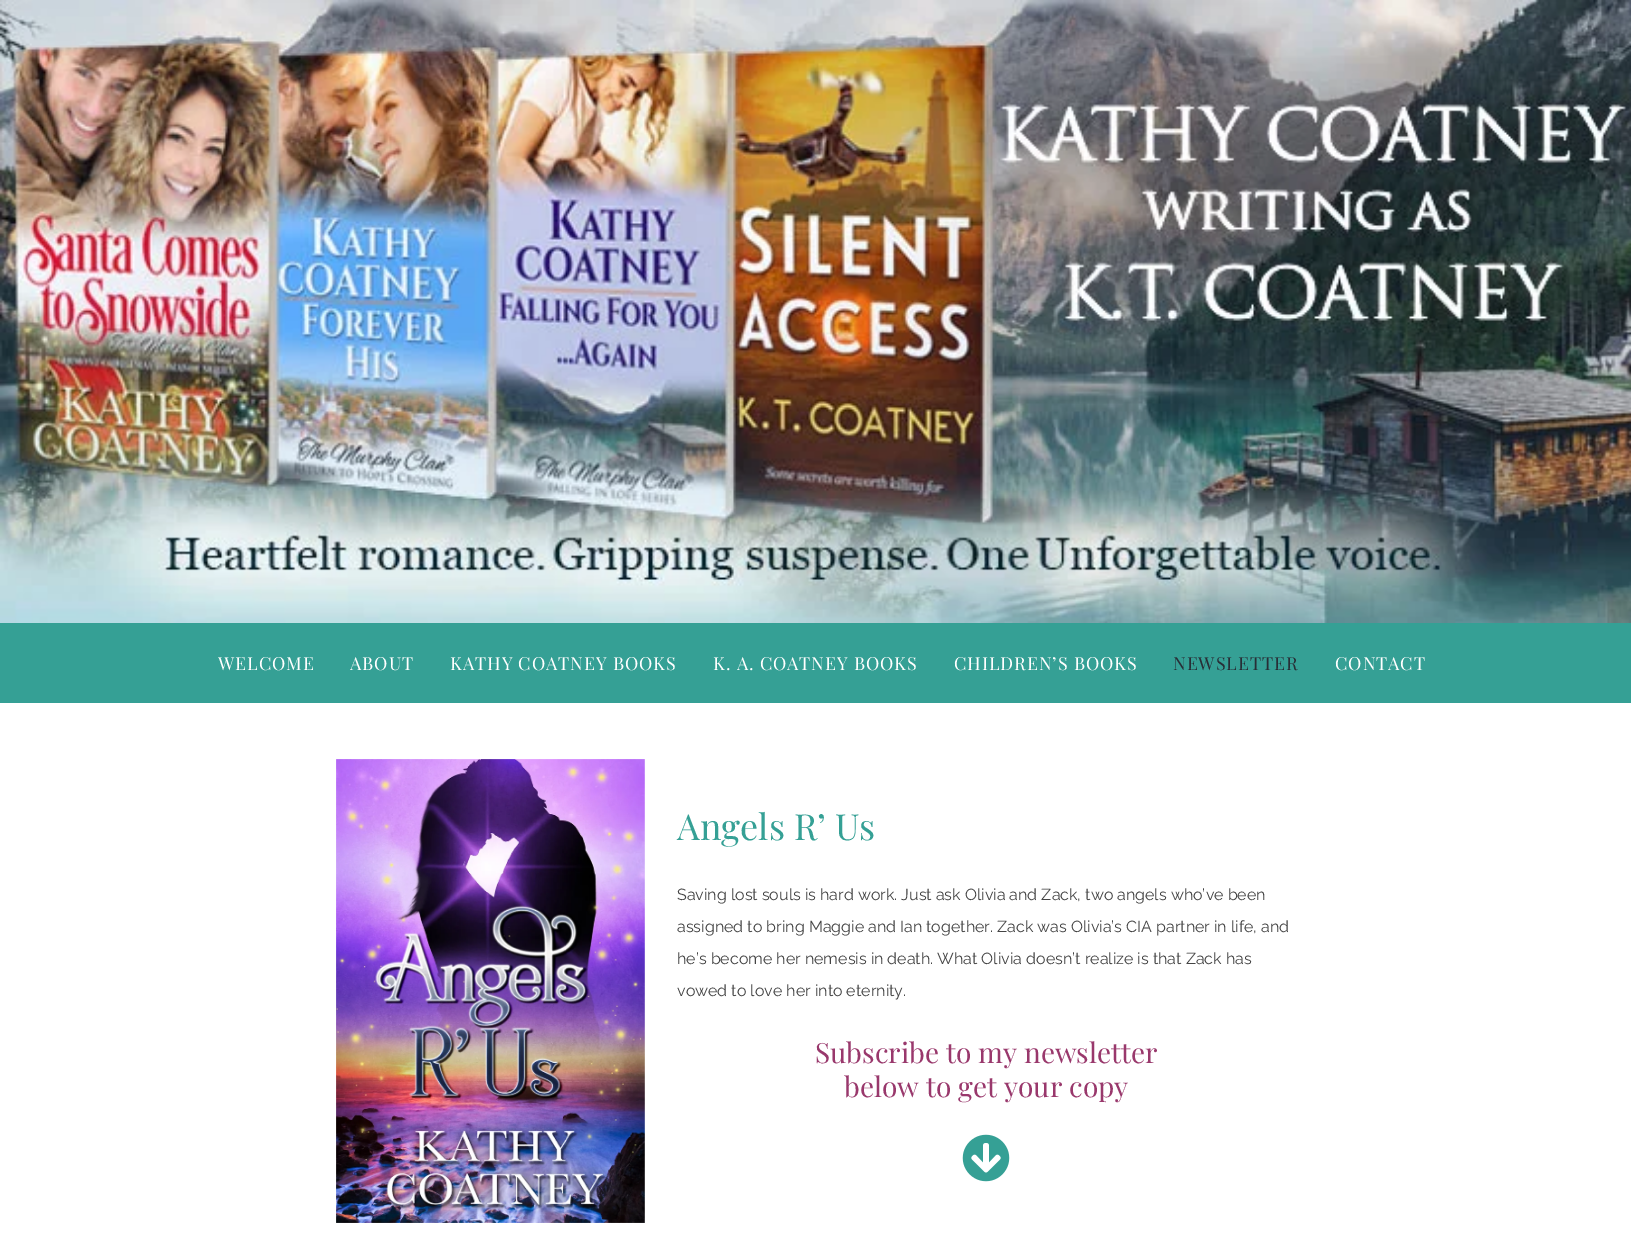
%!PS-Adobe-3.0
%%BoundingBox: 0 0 1631 1244
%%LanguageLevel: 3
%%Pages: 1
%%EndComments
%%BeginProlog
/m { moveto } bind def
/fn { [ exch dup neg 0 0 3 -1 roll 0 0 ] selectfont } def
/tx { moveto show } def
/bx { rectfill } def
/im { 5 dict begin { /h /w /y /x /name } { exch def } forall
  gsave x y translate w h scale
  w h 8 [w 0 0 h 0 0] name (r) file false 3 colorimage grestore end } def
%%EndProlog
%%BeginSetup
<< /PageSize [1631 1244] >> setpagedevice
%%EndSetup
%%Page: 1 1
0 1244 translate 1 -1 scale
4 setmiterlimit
1 setgray
0 0 1631 1244 bx
(image0.raw) 0 0 1631 623 im
0.208 0.627 0.584 setrgbcolor
0 623 1631 80 bx
/PlayfairDisplay-Regular 18 fn
1 setgray
218 670 m 0.9 0 (WELCOME) ashow
350 670 m 0.9 0 (ABOUT) ashow
450 670 m 0.9 0 (KATHY COATNEY BOOKS) ashow
713 670 m 0.9 0 (K. A. COATNEY BOOKS) ashow
954 670 m 0.9 0 (CHILDREN’S BOOKS) ashow
0.157 0.18 0.212 setrgbcolor
1173 670 m 0.9 0 (NEWSLETTER) ashow
1 setgray
1335 670 m 0.9 0 (CONTACT) ashow
(image1.raw) 336 759 309 464 im
/PlayfairDisplay-Regular 36 fn
0.208 0.627 0.584 setrgbcolor
(Angels R’ Us) 677 840 tx
/Raleway-Regular 16 fn
0.267 setgray
(Saving lost souls is hard work. Just ask Olivia and Zack, two angels who’ve been) 677 900 tx
(assigned to bring Maggie and Ian together. Zack was Olivia’s CIA partner in life, and) 677 932 tx
(he’s become her nemesis in death. What Olivia doesn’t realize is that Zack has) 677 964 tx
(vowed to love her into eternity.) 677 996 tx
/PlayfairDisplay-Regular 28 fn
0.6 0.22 0.424 setrgbcolor
(Subscribe to my newsletter) 815 1063 tx
(below to get your copy) 844 1097 tx
(image2.raw) 962 1134 48 48 im
showpage
%%EOF
